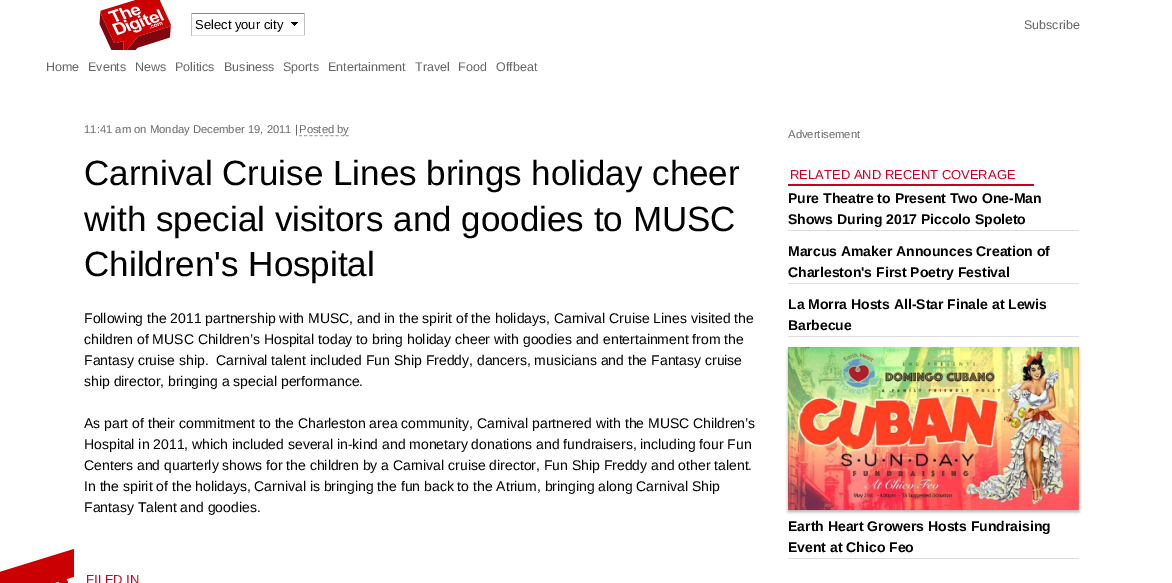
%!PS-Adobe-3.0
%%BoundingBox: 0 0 1172 583
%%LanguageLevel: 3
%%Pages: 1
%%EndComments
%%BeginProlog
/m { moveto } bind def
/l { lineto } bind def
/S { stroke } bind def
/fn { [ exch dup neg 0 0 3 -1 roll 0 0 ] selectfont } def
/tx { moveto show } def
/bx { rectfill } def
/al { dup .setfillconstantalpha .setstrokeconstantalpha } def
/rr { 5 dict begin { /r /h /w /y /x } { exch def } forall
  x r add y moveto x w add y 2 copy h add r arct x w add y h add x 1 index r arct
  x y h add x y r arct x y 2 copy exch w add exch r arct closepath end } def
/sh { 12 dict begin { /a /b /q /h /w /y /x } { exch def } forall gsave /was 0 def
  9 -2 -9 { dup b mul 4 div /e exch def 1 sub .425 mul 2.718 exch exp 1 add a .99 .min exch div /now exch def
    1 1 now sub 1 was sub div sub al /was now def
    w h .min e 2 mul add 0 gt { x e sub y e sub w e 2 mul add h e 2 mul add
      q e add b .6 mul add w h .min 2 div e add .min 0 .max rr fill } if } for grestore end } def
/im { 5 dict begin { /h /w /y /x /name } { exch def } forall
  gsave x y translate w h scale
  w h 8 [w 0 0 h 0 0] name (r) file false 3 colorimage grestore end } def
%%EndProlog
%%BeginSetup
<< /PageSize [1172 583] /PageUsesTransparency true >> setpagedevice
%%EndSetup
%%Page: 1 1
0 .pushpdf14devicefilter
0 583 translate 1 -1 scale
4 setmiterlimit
1 setgray
0 0 1172 583 bx
(image0.raw) 0 549 74 34 im
(image1.raw) 99 0 72 50 im
(image2.raw) 291 22 7 4 im
0.518 setgray
191 13 114 1 bx
0.757 setgray
304 13 1 23 bx
0.882 setgray
191 35 114 1 bx
0.757 setgray
191 13 1 23 bx
/LiberationSans-Regular 13 fn
0 setgray
(Select your city) 195 29 tx
/LiberationSans-Regular 12.5 fn
0.4 setgray
(Subscribe) 1024 29 tx
(Home) 46 71 tx
(Events) 88 71 tx
(News) 135 71 tx
(Politics) 175 71 tx
(Business) 224 71 tx
(Sports) 283 71 tx
(Entertainment) 328 71 tx
(Travel) 415 71 tx
(Food) 458 71 tx
(Offbeat) 496 71 tx
/LiberationSans-Regular 11.25 fn
(11:41 am on Monday December 19, 2011 |) 84 133 tx
0.667 setgray
[3 2.22] 0 setdash
299 135.5 m 349 135.5 l S
0.4 setgray
(Posted by) 299 133 tx
/LiberationSans-Regular 35 fn
0 setgray
(Carnival Cruise Lines brings holiday cheer) 84 185 tx
(with special visitors and goodies to MUSC) 84 231 tx
(Children's Hospital) 84 276 tx
/LiberationSans-Regular 14 fn
(Following the 2011 partnership with MUSC, and in the spirit of the holidays, Carnival Cruise Lines visited the) 84 323 tx
(children of MUSC Children’s Hospital today to bring holiday cheer with goodies and entertainment from the) 84 344 tx
(Fantasy cruise ship.  Carnival talent included Fun Ship Freddy, dancers, musicians and the Fantasy cruise) 84 365 tx
(ship director, bringing a special performance.) 84 386 tx
(As part of their commitment to the Charleston area community, Carnival partnered with the MUSC Children’s) 84 428 tx
(Hospital in 2011, which included several in-kind and monetary donations and fundraisers, including four Fun) 84 449 tx
(Centers and quarterly shows for the children by a Carnival cruise director, Fun Ship Freddy and other talent.) 84 470 tx
(In the spirit of the holidays, Carnival is bringing the fun back to the Atrium, bringing along Carnival Ship) 84 491 tx
(Fantasy Talent and goodies.) 84 512 tx
/LiberationSans-Regular 13 fn
0.792 0 0.133 setrgbcolor
(FILED IN) 86 584 tx
/LiberationSans-Regular 11.25 fn
0.4 setgray
(Advertisement) 788 138 tx
0.792 0 0.133 setrgbcolor
788 184 246 2 bx
/LiberationSans-Regular 13 fn
(RELATED AND RECENT COVERAGE) 790 179 tx
0.867 setgray
788 230 291 1 bx
/LiberationSans-Bold 14 fn
0 setgray
(Pure Theatre to Present Two One-Man) 788 203 tx
(Shows During 2017 Piccolo Spoleto) 788 224 tx
0.867 setgray
788 283 291 1 bx
0 setgray
(Marcus Amaker Announces Creation of) 788 256 tx
(Charleston's First Poetry Festival) 788 277 tx
0.867 setgray
788 336 291 1 bx
0 setgray
(La Morra Hosts All-Star Finale at Lewis) 788 309 tx
(Barbecue) 788 330 tx
0.867 setgray
788 558 291 1 bx
0 setgray
788 349 291 163 0 1.5 0.3 sh
(image3.raw) 788 347 291 163 im
(Earth Heart Growers Hosts Fundraising) 788 531 tx
(Event at Chico Feo) 788 552 tx
.poppdf14devicefilter showpage
%%EOF
